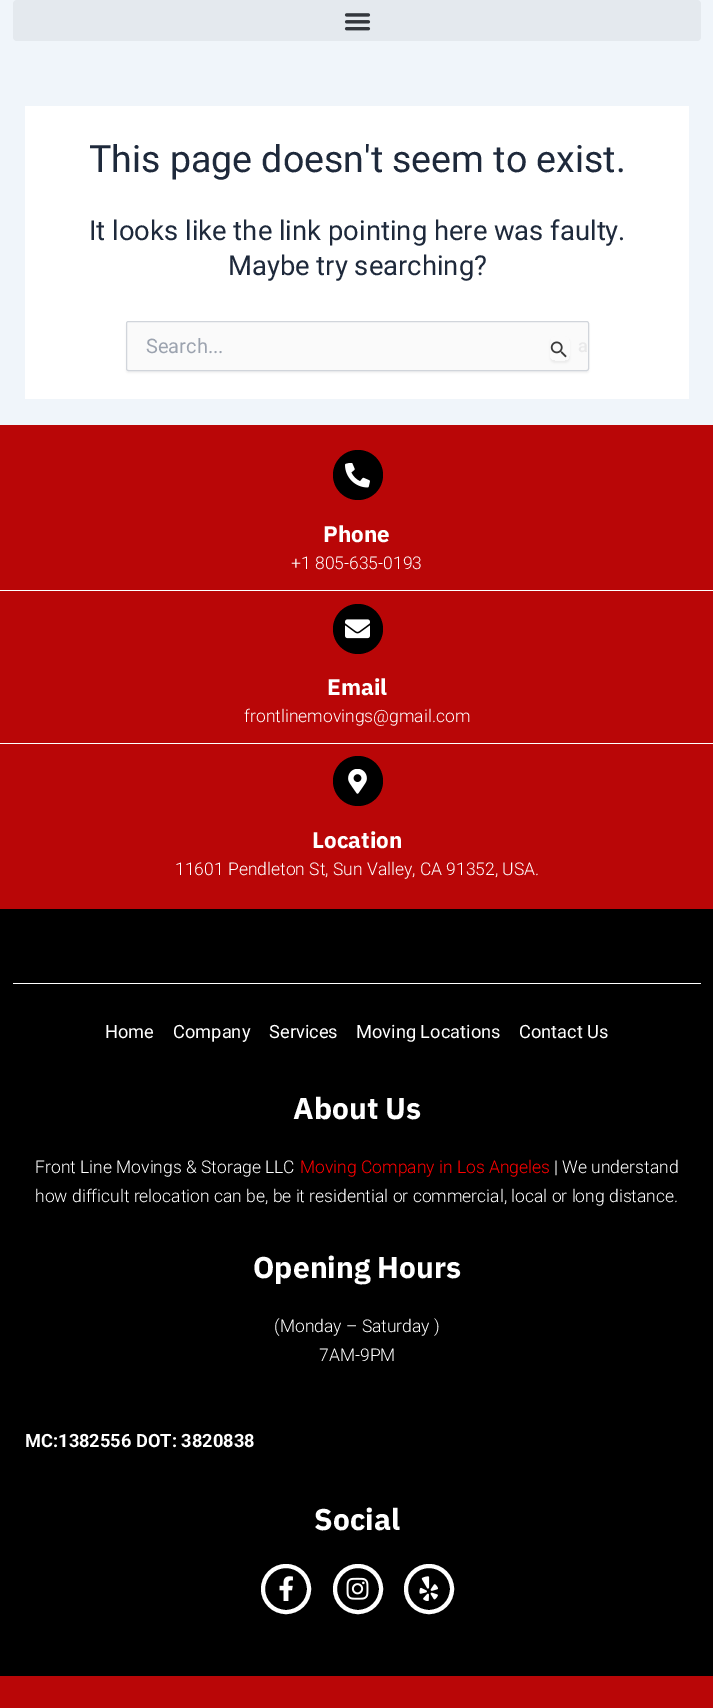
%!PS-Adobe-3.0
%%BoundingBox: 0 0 713 1708
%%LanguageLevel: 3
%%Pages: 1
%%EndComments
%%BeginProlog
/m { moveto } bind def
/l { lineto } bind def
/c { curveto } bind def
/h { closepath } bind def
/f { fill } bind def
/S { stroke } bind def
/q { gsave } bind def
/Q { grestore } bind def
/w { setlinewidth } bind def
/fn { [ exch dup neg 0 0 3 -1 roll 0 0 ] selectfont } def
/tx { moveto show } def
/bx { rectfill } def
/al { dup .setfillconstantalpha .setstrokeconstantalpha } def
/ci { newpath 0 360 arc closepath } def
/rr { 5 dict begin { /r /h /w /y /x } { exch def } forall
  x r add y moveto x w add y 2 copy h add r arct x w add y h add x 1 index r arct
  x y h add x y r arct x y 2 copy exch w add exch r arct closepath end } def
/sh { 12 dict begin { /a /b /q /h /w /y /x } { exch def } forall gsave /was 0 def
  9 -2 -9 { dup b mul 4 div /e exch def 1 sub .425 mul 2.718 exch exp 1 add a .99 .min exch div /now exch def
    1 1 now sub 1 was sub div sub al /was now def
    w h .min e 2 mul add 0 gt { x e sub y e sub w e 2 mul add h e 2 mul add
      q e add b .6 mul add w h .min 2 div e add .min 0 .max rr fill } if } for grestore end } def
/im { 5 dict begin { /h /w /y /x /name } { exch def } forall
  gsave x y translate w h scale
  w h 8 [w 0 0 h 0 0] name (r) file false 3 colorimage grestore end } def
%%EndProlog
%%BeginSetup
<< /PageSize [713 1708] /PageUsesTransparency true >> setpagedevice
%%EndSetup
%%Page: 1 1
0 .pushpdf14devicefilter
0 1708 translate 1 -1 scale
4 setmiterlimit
0.941 0.961 0.98 setrgbcolor
0 0 713 1708 bx
0.894 0.914 0.933 setrgbcolor
13 0 688 41 4 rr f
(image0.raw) 344 13 27 18 im
1 setgray
25 106 664 293 bx
/Roboto-Regular 37.5 fn
0.118 0.161 0.231 setrgbcolor
(This page doesn't seem to exist.) 89 172 tx
/Roboto-Regular 27.4 fn
(It looks like the link pointing here was faulty.) 89 240 tx
(Maybe try searching?) 228 275 tx
0 setgray
126 323 463 50 2.5 1 0.05 sh
0.98 setgray
126.5 321.5 462 49 2 rr q f Q
0.82 0.835 0.859 setrgbcolor
S
/Roboto-Regular 20 fn
0.612 0.639 0.686 setrgbcolor
(Search...) 146 353 tx
q
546 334 m 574 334 l 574 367 l 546 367 l h 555 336 m 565 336 l 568 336 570 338 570 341 c 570 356 l 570 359 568 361 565 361 c 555 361 l 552 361 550 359 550 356 c 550 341 l 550 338 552 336 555 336 c h eoclip newpath
0 setgray
550 338 20 25 5 1 0.05 sh
Q
(image1.raw) 550 341 17 17 im
/Roboto-Medium 18.25 fn
0.914 0.914 0.918 setrgbcolor
(a) 578 352 tx
0.725 0.024 0.027 setrgbcolor
0 425 713 484 bx
0 setgray
358 475 25 ci f
(image2.raw) 345 463 25 25 im
/IBMPlexSans-Bold 22.5 fn
1 setgray
(Phone) 323 542 tx
/Roboto-Light 17.5 fn
(+1 805-635-0193) 291 569 tx
0 590 713 1 bx
0 743 713 1 bx
0 setgray
358 629 25 ci f
(image3.raw) 345 619 25 20 im
/IBMPlexSans-Bold 22.5 fn
1 setgray
(Email) 327 695 tx
/Roboto-Light 17.5 fn
(frontlinemovings@gmail.com) 244 722 tx
0 setgray
358 781 25 ci f
(image4.raw) 348 769 19 25 im
/IBMPlexSans-Bold 22.5 fn
1 setgray
(Location) 312 848 tx
/Roboto-Light 17.5 fn
(11601 Pendleton St, Sun Valley, CA 91352, USA.) 175 875 tx
0 setgray
0 909 713 767 bx
1 setgray
13 983 688 1 bx
/Roboto-Regular 18.25 fn
(Home) 105 1038 tx
(Company) 173 1038 tx
(Services) 269 1038 tx
(Moving Locations) 356 1038 tx
(Contact Us) 519 1038 tx
/IBMPlexSans-Bold 30 fn
(About Us) 293 1119 tx
/Roboto-Light 17.5 fn
(Front Line Movings & Storage LLC) 35 1173 tx
1 0 0 setrgbcolor
(Moving Company in Los Angeles) 300 1173 tx
1 setgray
(| We understand) 554 1173 tx
(how difficult relocation can be, be it residential or commercial, local or long distance.) 35 1202 tx
/IBMPlexSans-Bold 30 fn
(Opening Hours) 253 1278 tx
/Roboto-Light 17.5 fn
(\(Monday – Saturday \)) 274 1332 tx
(7AM-9PM) 319 1361 tx
/Roboto-Bold 18.25 fn
(MC:1382556 DOT: 3820838) 25 1447 tx
/IBMPlexSans-Bold 30 fn
(Social) 314 1530 tx
4 w
286 1589 23 ci S
(image5.raw) 279 1576 14 25 im
358 1589 23 ci S
(image6.raw) 346 1577 23 23 im
429 1589 23 ci S
(image7.raw) 419 1576 19 25 im
0.725 0.024 0.027 setrgbcolor
0 1676 713 32 bx
.poppdf14devicefilter showpage
%%EOF
